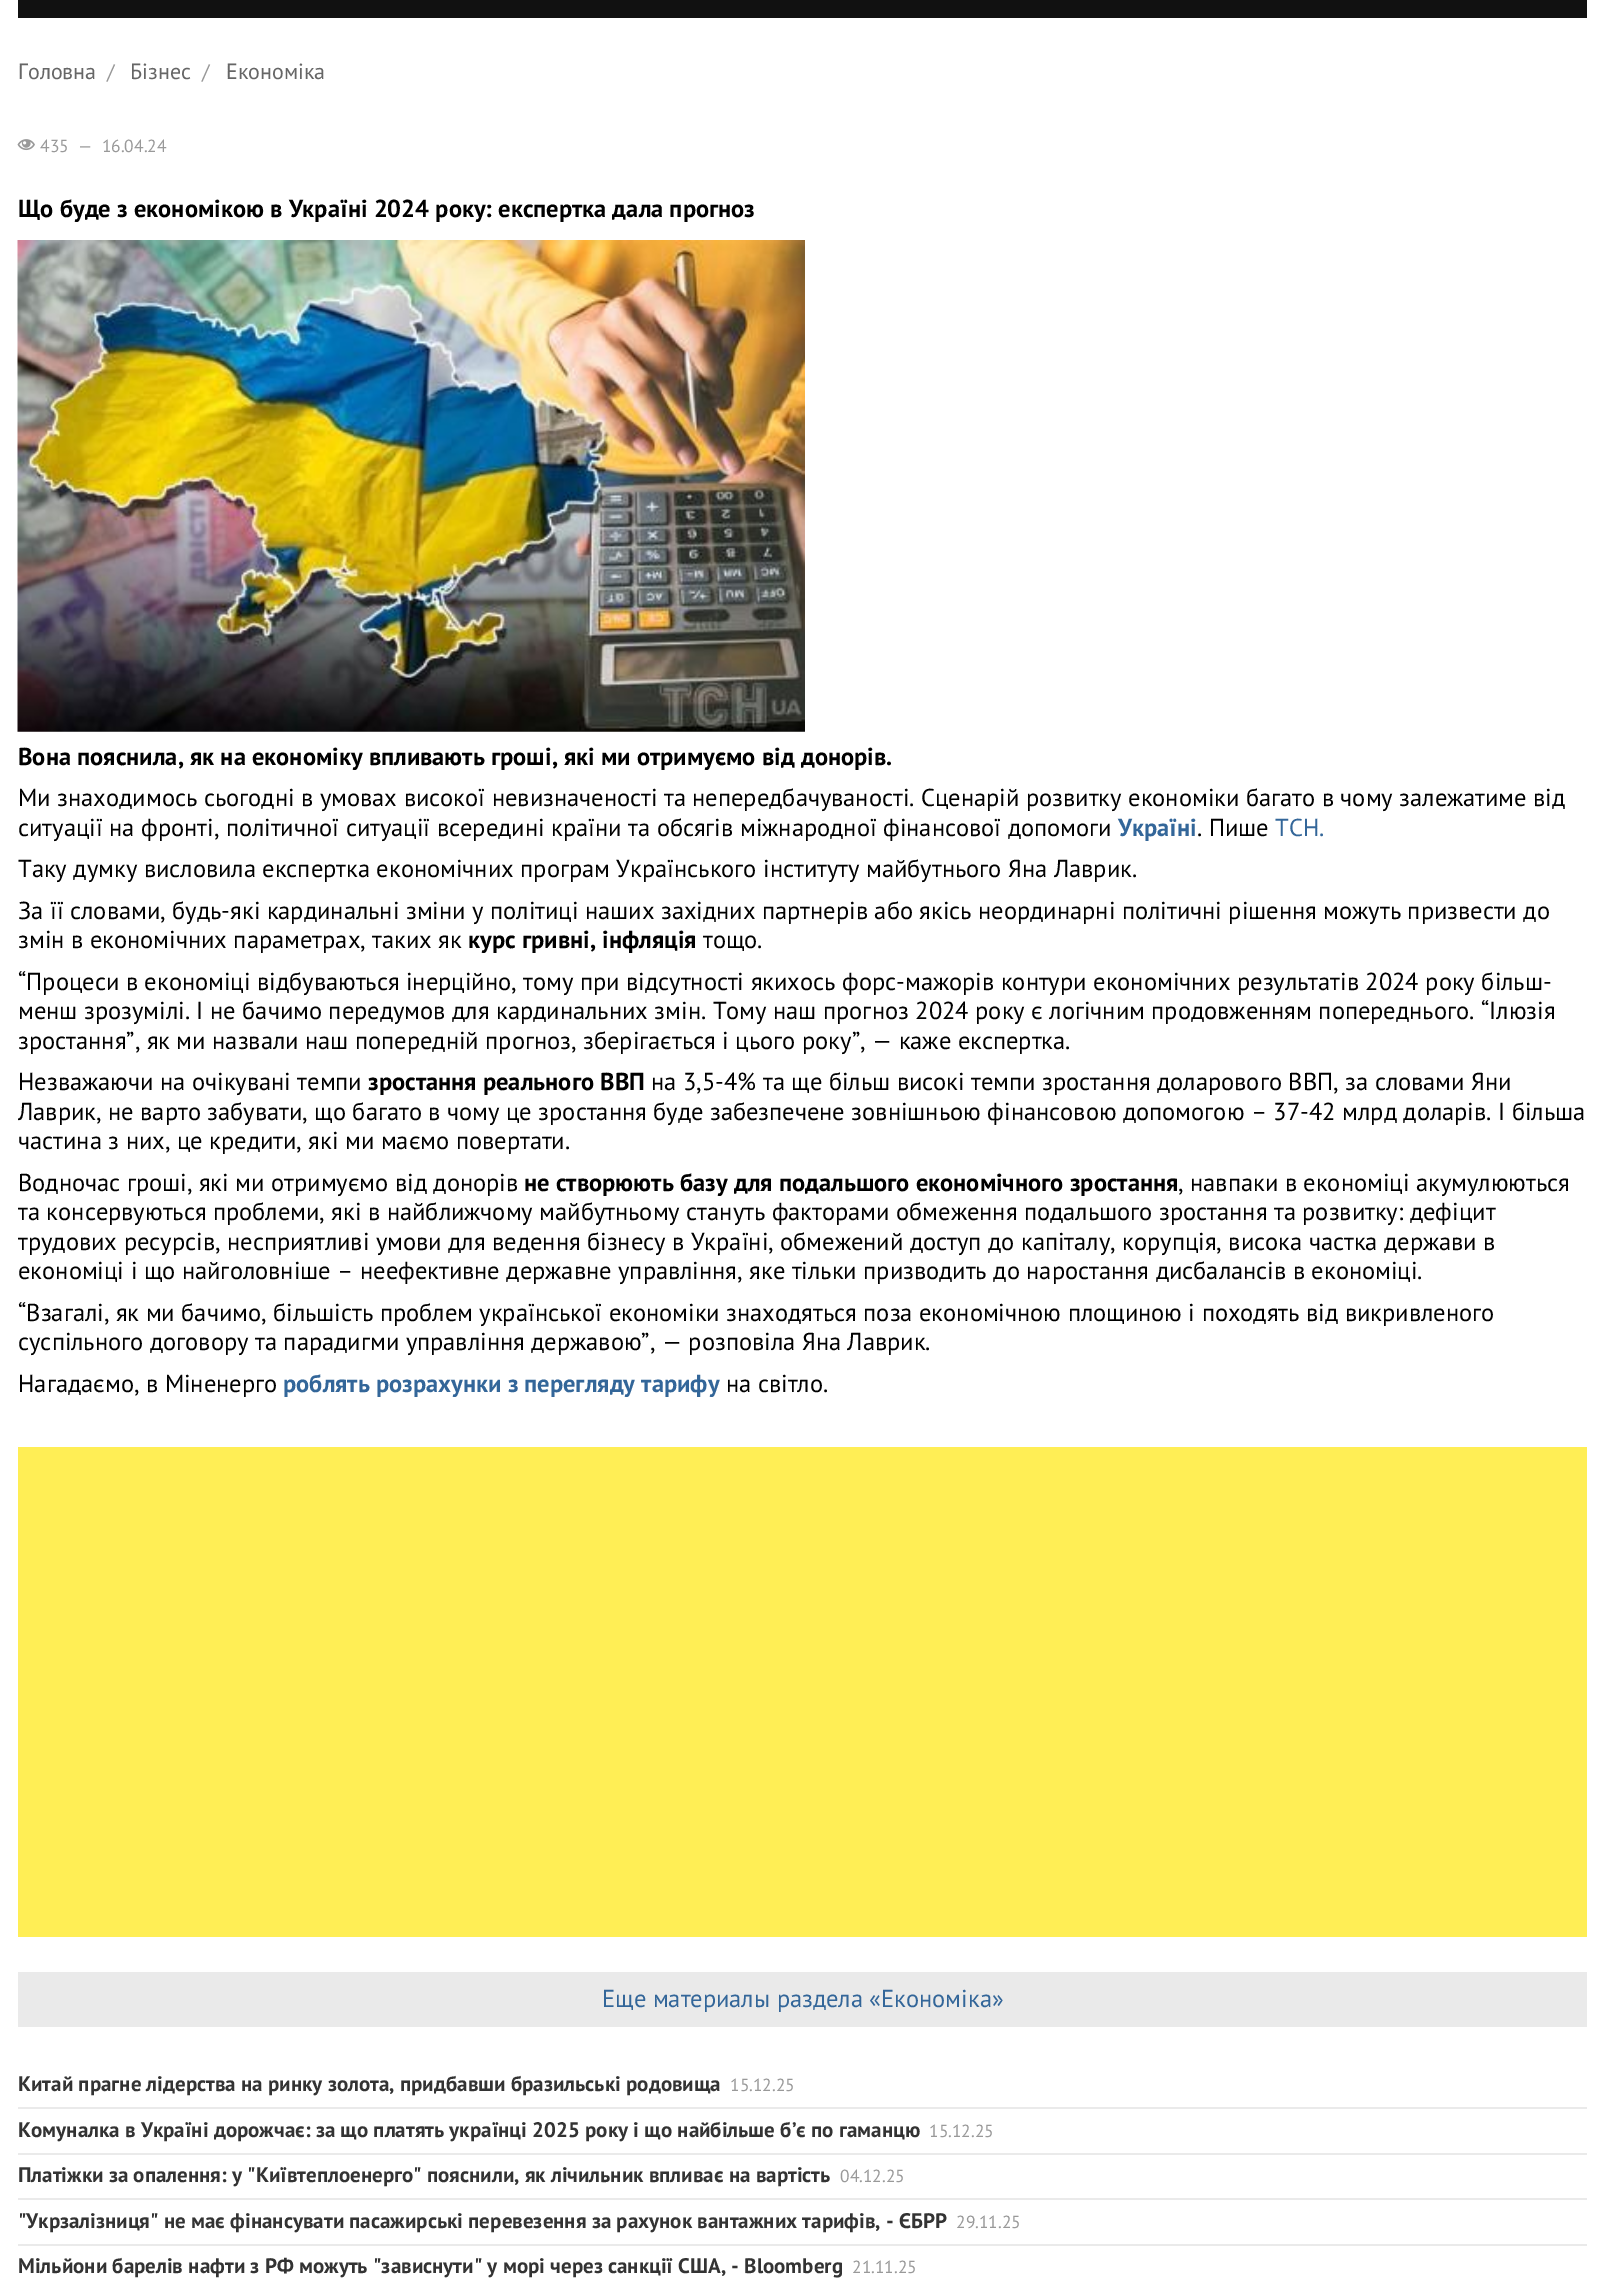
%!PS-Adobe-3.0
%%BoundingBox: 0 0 1604 2282
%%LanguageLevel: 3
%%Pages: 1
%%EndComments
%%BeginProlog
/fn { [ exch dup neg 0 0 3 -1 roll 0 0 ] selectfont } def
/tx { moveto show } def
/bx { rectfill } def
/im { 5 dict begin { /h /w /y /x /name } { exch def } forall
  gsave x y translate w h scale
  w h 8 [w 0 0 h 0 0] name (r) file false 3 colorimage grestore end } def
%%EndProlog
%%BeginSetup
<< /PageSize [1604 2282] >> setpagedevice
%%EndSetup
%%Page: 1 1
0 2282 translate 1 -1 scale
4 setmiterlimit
1 setgray
0 0 1604 2282 bx
0.067 setgray
18 0 1569 18 bx
/PTSans-Regular 22 fn
0.4 setgray
(Головна) 18 79 tx
/PTSans-Regular 21 fn
0.6 setgray
(/) 107 79 tx
/PTSans-Regular 22 fn
0.4 setgray
(Бізнес) 130 79 tx
/PTSans-Regular 21 fn
0.6 setgray
(/) 202 79 tx
/PTSans-Regular 22 fn
0.4 setgray
(Економіка) 226 79 tx
(image0.raw) 17 139 18 12 im
/PTSans-Regular 17.5 fn
0.6 setgray
(435  —  16.04.24) 40 152 tx
/PTSans-Bold 24.5 fn
0 setgray
(Що буде з економікою в Україні 2024 року: експертка дала прогноз) 18 217 tx
(image1.raw) 17 240 788 492 im
(Вона пояснила, як на економіку впливають гроші, які ми отримуємо від донорів.) 18 765 tx
/PTSans-Regular 24.5 fn
(Ми знаходимось сьогодні в умовах високої невизначеності та непередбачуваності. Сценарій розвитку економіки багато в чому залежатиме від) 18 806 tx
(ситуації на фронті, політичної ситуації всередині країни та обсягів міжнародної фінансової допомоги) 18 836 tx
/PTSans-Bold 24.5 fn
0.2 0.4 0.6 setrgbcolor
(Україні) 1118 836 tx
/PTSans-Regular 24.5 fn
0 setgray
(. Пише) 1197 836 tx
0.2 0.4 0.6 setrgbcolor
(ТСН.) 1275 836 tx
0 setgray
(Таку думку висловила експертка економічних програм Українського інституту майбутнього Яна Лаврик.) 18 877 tx
(За її словами, будь-які кардинальні зміни у політиці наших західних партнерів або якісь неординарні політичні рішення можуть призвести до) 18 919 tx
(змін в економічних параметрах, таких як) 18 948 tx
/PTSans-Bold 24.5 fn
(курс гривні, інфляція) 468 948 tx
/PTSans-Regular 24.5 fn
(тощо.) 703 948 tx
(“Процеси в економіці відбуваються інерційно, тому при відсутності якихось форс-мажорів контури економічних результатів 2024 року більш-) 18 990 tx
(менш зрозумілі. І не бачимо передумов для кардинальних змін. Тому наш прогноз 2024 року є логічним продовженням попереднього. “Ілюзія) 18 1019 tx
(зростання”, як ми назвали наш попередній прогноз, зберігається і цього року”, — каже експертка.) 18 1049 tx
(Незважаючи на очікувані темпи) 18 1090 tx
/PTSans-Bold 24.5 fn
(зростання реального ВВП) 368 1090 tx
/PTSans-Regular 24.5 fn
(на 3,5-4% та ще більш високі темпи зростання доларового ВВП, за словами Яни) 651 1090 tx
(Лаврик, не варто забувати, що багато в чому це зростання буде забезпечене зовнішньою фінансовою допомогою – 37-42 млрд доларів. І більша) 18 1120 tx
(частина з них, це кредити, які ми маємо повертати.) 18 1149 tx
(Водночас гроші, які ми отримуємо від донорів) 18 1191 tx
/PTSans-Bold 24.5 fn
(не створюють базу для подальшого економічного зростання) 524 1191 tx
/PTSans-Regular 24.5 fn
(, навпаки в економіці акумулюються) 1178 1191 tx
(та консервуються проблеми, які в найближчому майбутньому стануть факторами обмеження подальшого зростання та розвитку: дефіцит) 18 1220 tx
(трудових ресурсів, несприятливі умови для ведення бізнесу в Україні, обмежений доступ до капіталу, корупція, висока частка держави в) 18 1250 tx
(економіці і що найголовніше – неефективне державне управління, яке тільки призводить до наростання дисбалансів в економіці.) 18 1279 tx
(“Взагалі, як ми бачимо, більшість проблем української економіки знаходяться поза економічною площиною і походять від викривленого) 18 1321 tx
(суспільного договору та парадигми управління державою”, — розповіла Яна Лаврик.) 18 1350 tx
(Нагадаємо, в Міненерго) 18 1392 tx
/PTSans-Bold 24.5 fn
0.2 0.4 0.6 setrgbcolor
(роблять розрахунки з перегляду тарифу) 283 1392 tx
/PTSans-Regular 24.5 fn
0 setgray
(на світло.) 726 1392 tx
1 0.933 0.333 setrgbcolor
18 1447 1569 490 bx
0.918 setgray
18 1972 1569 55 bx
0.2 0.4 0.6 setrgbcolor
(Еще материалы раздела «Економіка») 602 2007 tx
/PTSans-Bold 21 fn
0.2 setgray
(Китай прагне лідерства на ринку золота, придбавши бразильські родовища) 18 2091 tx
/PTSans-Regular 17.5 fn
0.6 setgray
(15.12.25) 730 2091 tx
0.918 setgray
18 2107 1569 2 bx
/PTSans-Bold 21 fn
0.2 setgray
(Комуналка в Україні дорожчає: за що платять українці 2025 року і що найбільше б’є по гаманцю) 18 2137 tx
/PTSans-Regular 17.5 fn
0.6 setgray
(15.12.25) 929 2137 tx
0.918 setgray
18 2153 1569 2 bx
/PTSans-Bold 21 fn
0.2 setgray
(Платіжки за опалення: у "Київтеплоенерго" пояснили, як лічильник впливає на вартість) 18 2182 tx
/PTSans-Regular 17.5 fn
0.6 setgray
(04.12.25) 840 2182 tx
0.918 setgray
18 2198 1569 2 bx
/PTSans-Bold 21 fn
0.2 setgray
("Укрзалізниця" не має фінансувати пасажирські перевезення за рахунок вантажних тарифів, - ЄБРР) 18 2228 tx
/PTSans-Regular 17.5 fn
0.6 setgray
(29.11.25) 956 2228 tx
0.918 setgray
18 2244 1569 2 bx
/PTSans-Bold 21 fn
0.2 setgray
(Мільйони барелів нафти з РФ можуть "зависнути" у морі через санкції США, - Bloomberg) 18 2273 tx
/PTSans-Regular 17.5 fn
0.6 setgray
(21.11.25) 852 2273 tx
showpage
%%EOF
